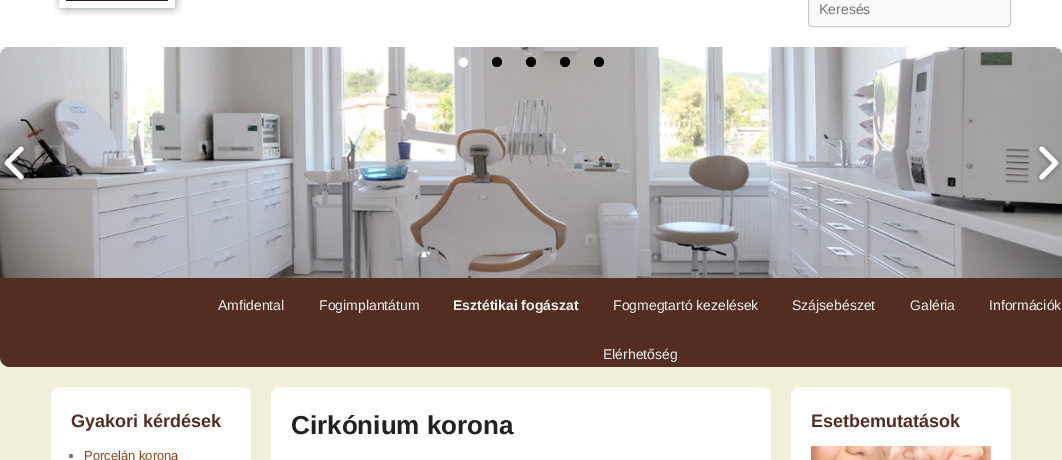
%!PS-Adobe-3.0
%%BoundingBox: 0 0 1062 460
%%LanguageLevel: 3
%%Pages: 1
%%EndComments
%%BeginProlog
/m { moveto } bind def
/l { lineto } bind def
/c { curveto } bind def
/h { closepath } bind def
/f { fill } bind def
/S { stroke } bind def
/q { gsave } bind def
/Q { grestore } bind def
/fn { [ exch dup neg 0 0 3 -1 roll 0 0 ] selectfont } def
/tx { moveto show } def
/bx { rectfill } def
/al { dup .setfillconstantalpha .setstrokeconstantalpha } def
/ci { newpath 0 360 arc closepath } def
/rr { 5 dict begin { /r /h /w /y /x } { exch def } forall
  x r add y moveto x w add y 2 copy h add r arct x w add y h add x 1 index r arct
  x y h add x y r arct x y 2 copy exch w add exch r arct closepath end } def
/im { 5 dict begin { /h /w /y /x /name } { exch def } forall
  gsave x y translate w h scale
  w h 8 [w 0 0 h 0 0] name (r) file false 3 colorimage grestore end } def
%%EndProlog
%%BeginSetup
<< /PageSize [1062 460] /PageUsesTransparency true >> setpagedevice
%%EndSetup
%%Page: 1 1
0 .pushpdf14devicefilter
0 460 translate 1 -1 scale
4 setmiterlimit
0.945 0.937 0.855 setrgbcolor
0 0 1062 460 bx
1 setgray
0 0 1062 47 bx
(image0.raw) 53 0 130 16 im
0.98 setgray
808.5 -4.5 202 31 3.5 rr q f Q
0.8 setgray
S
/LiberationSans-Regular 14 fn
0.459 setgray
(Keresés) 819 14 tx
(image1.raw) 0 47 1062 231 im
1 setgray
463 62 5 ci f
0.1 al
0 setgray
464 58 m 465.5 58 466.5 58.5 467.5 59.5 c 463 52 453 62 460.5 66.5 c 458.5 63.5 459.5 58 464 58 c h f
1 al
497 62 5 ci f
0.1 al
498 58 m 499.5 58 500.5 58.5 501.5 59.5 c 497 52 487 62 494.5 66.5 c 492.5 63.5 493.5 58 498 58 c h f
1 al
531 62 5 ci f
0.1 al
532 58 m 533.5 58 534.5 58.5 535.5 59.5 c 531 52 521 62 528.5 66.5 c 526.5 63.5 527.5 58 532 58 c h f
1 al
565 62 5 ci f
0.1 al
566 58 m 567.5 58 568.5 58.5 569.5 59.5 c 565 52 555 62 562.5 66.5 c 560.5 63.5 561.5 58 566 58 c h f
1 al
599 62 5 ci f
0.1 al
600 58 m 601.5 58 602.5 58.5 603.5 59.5 c 599 52 589 62 596.5 66.5 c 594.5 63.5 595.5 58 600 58 c h f
1 al
(image2.raw) 1 144 26 40 im
(image3.raw) 1036 144 26 40 im
0.329 0.176 0.129 setrgbcolor
0 278 m 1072 278 l 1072 357 l 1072 362.5 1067.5 367 1062 367 c 10 367 l 4.5 367 0 362.5 0 357 c h f
0.933 setgray
(Amfidental) 218 310 tx
(Fogimplantátum) 319 310 tx
/LiberationSans-Bold 14 fn
(Esztétikai fogászat) 453 310 tx
/LiberationSans-Regular 14 fn
(Fogmegtartó kezelések) 613 310 tx
(Szájsebészet) 792 310 tx
(Galéria) 910 310 tx
(Információk) 989 310 tx
(Elérhetőség) 603 359 tx
1 setgray
51 387 200 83 10 rr f
/LiberationSans-Bold 18 fn
0.329 0.176 0.129 setrgbcolor
(Gyakori kérdések) 71 427 tx
0.467 setgray
71 456 2 ci f
/LiberationSans-Regular 13 fn
0.522 0.278 0.114 setrgbcolor
(Porcelán korona) 84 460 tx
1 setgray
271 387 500 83 10 rr f
/LiberationSans-Bold 26 fn
0.133 setgray
(Cirkónium korona) 291 434 tx
1 setgray
791 387 220 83 10 rr f
/LiberationSans-Bold 18 fn
0.329 0.176 0.129 setrgbcolor
(Esetbemutatások) 811 427 tx
(image4.raw) 811 446 180 14 im
.poppdf14devicefilter showpage
%%EOF
